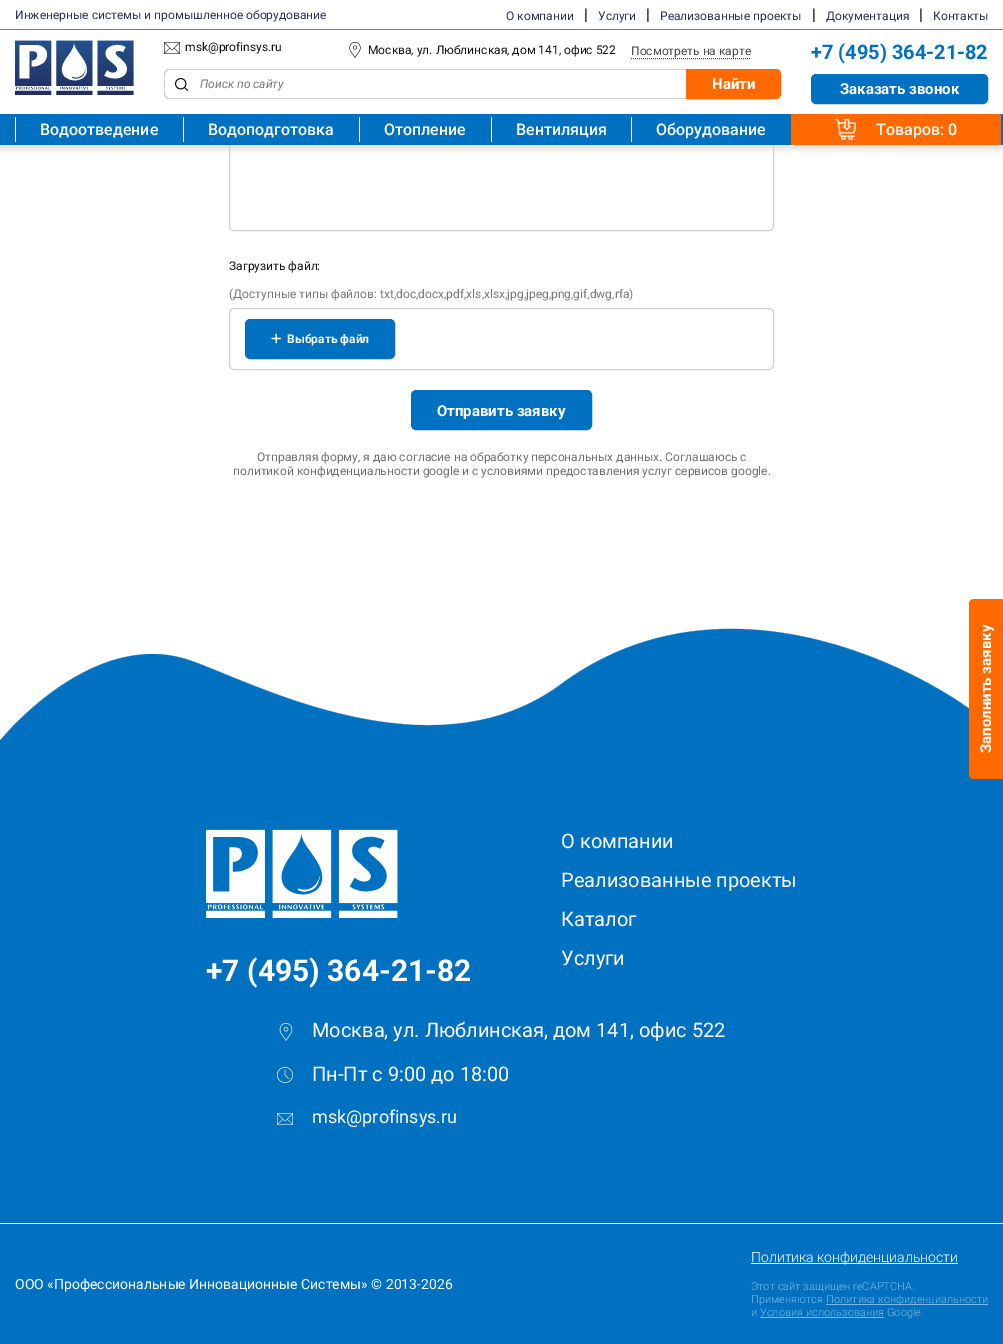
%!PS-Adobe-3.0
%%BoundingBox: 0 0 1003 1344
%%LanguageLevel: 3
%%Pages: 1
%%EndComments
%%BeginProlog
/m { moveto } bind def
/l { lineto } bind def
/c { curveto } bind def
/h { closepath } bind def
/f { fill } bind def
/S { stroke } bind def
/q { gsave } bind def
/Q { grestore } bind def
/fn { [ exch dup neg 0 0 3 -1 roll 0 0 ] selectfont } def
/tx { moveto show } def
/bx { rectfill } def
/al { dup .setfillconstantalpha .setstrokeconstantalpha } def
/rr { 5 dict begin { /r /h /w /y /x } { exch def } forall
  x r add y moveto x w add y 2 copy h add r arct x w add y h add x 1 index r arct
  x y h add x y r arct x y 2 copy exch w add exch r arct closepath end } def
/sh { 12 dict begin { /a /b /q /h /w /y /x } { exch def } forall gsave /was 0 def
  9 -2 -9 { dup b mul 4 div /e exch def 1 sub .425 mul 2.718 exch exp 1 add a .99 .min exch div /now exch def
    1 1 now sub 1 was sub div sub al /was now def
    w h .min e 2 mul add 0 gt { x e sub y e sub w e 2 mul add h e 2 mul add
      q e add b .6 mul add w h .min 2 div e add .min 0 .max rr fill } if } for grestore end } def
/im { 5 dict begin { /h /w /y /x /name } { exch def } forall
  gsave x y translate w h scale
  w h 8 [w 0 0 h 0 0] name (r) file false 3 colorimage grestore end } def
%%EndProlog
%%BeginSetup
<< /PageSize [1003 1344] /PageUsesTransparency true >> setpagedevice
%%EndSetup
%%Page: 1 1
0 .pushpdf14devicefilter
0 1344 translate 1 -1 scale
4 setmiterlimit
1 setgray
0 0 1003 1344 bx
0.82 setgray
229.5 91.5 544 139 4.5 rr S
0.784 setgray
-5 -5 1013 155 0 2.5 0.5 sh
1 setgray
0 0 1003 114 bx
0.467 setgray
0 29 1003 1 bx
/Roboto-Regular 12 fn
0.173 0.196 0.345 setrgbcolor
(Инженерные системы и промышленное оборудование) 15 19 tx
(О компании) 506 20 tx
/Roboto-Regular 16 fn
0.067 setgray
(|) 584 20 tx
/Roboto-Regular 12 fn
0.173 0.196 0.345 setrgbcolor
(Услуги) 598 20 tx
/Roboto-Regular 16 fn
0.067 setgray
(|) 646 20 tx
/Roboto-Regular 12 fn
0.173 0.196 0.345 setrgbcolor
(Реализованные проекты) 660 20 tx
/Roboto-Regular 16 fn
0.067 setgray
(|) 812 20 tx
/Roboto-Regular 12 fn
0.173 0.196 0.345 setrgbcolor
(Документация) 826 20 tx
/Roboto-Regular 16 fn
0.067 setgray
(|) 919 20 tx
/Roboto-Regular 12 fn
0.173 0.196 0.345 setrgbcolor
(Контакты) 933 20 tx
(image0.raw) 15 40 119 55 im
(image1.raw) 164 42 16 12 im
0.067 setgray
(msk@profinsys.ru) 185 51 tx
(image2.raw) 349 42 12 16 im
(Москва, ул. Люблинская, дом 141, офис 522) 368 54 tx
0.294 setgray
(Посмотреть на карте) 631 55 tx
[1 1] 0 setdash
631 58.5 m 751 58.5 l S
0.82 setgray
169 69 m 686 69 l 686 99 l 169 99 l 166 99 164 97 164 94 c 164 74 l 164 71 166 69 169 69 c h 169 70 m 686 70 l 686 98 l 169 98 l 163 98 165 87 165 84 c 165 81 163 70 169 70 c h eofill
(image3.raw) 175 78 13 13 im
/Roboto-Italic 12 fn
0.471 setgray
(Поиск по сайту) 200 88 tx
1 0.412 0 setrgbcolor
686.5 69.5 m 776 69.5 l 778.5 69.5 780.5 71.5 780.5 74 c 780.5 94 l 780.5 96.5 778.5 98.5 776 98.5 c 686.5 98.5 l h q f Q
[] 0 setdash
S
/Roboto-Bold 15 fn
1 setgray
(Найти) 712 89 tx
/Roboto-Bold 20 fn
0 0.439 0.753 setrgbcolor
(+7 \(495\) 364-21-82) 811 59 tx
811.5 74.5 176 29 4.5 rr q f Q
S
/Roboto-Bold 15 fn
1 setgray
(Заказать звонок) 840 94 tx
0 0.439 0.753 setrgbcolor
0 114 1003 31 bx
1 setgray
15 117 1 25 bx
/Roboto-Medium 16 fn
(Водоотведение) 40 135 tx
183 117 1 25 bx
(Водоподготовка) 208 135 tx
359 117 1 25 bx
(Отопление) 384 135 tx
491 117 1 25 bx
(Вентиляция) 516 135 tx
631 117 1 25 bx
(Оборудование) 656 135 tx
1 0.412 0 setrgbcolor
791 114 210 31 bx
(image4.raw) 834 119 22 21 im
1 setgray
(Товаров: 0) 876 135 tx
/Roboto-Regular 12 fn
0.067 setgray
(Загрузить файл:) 229 270 tx
0.471 setgray
(\(Доступные типы файлов: txt,doc,docx,pdf,xls,xlsx,jpg,jpeg,png,gif,dwg,rfa\)) 229 298 tx
0.82 setgray
229.5 308.5 544 61 4.5 rr S
0 0.439 0.753 setrgbcolor
245.5 319.5 149 39 4.5 rr q f Q
S
(image5.raw) 271 333 11 11 im
/Roboto-Bold 12 fn
1 setgray
(Выбрать файл) 287 343 tx
0 0.439 0.753 setrgbcolor
411.5 390.5 180 39 4.5 rr q f Q
S
/Roboto-Bold 15 fn
1 setgray
(Отправить заявку) 437 416 tx
/Roboto-Regular 12 fn
0.439 setgray
(Отправляя форму, я даю согласие на обработку персональных данных. Соглашаюсь с) 257 461 tx
(политикой конфиденциальности google и с уcловиями предоставления услуг сервисов google.) 233 475 tx
(image6.raw) 0 628 969 136 im
0 0.439 0.753 setrgbcolor
0 764 1003 580 bx
1 0.412 0 setrgbcolor
969 774 m 969 604 l 969 601 971 599 974 599 c 1003 599 l 1003 779 l 974 779 l 971 779 969 777 969 774 c h f
/Roboto-Bold 15 fn
1 setgray
q 991 753 translate -90 rotate 0 0 m (Заполнить заявку) show Q
(image7.raw) 206 829 192 89 im
/Roboto-Bold 30 fn
(+7 \(495\) 364-21-82) 206 981 tx
/Roboto-Regular 20 fn
(О компании) 561 848 tx
(Реализованные проекты) 561 887 tx
(Каталог) 561 926 tx
(Услуги) 561 965 tx
(image8.raw) 279 1023 14 18 im
(Москва, ул. Люблинская, дом 141, офис 522) 312 1037 tx
(image9.raw) 277 1067 16 16 im
(Пн-Пт с 9:00 до 18:00) 312 1081 tx
(image10.raw) 277 1113 16 12 im
/Roboto-Regular 18 fn
(msk@profinsys.ru) 312 1123 tx
0 1223 1003 1 bx
/Roboto-Regular 14 fn
(ООО «Профессиональные Инновационные Системы» © 2013-2026) 15 1289 tx
751 1263 207 1 bx
/Roboto-Light 14 fn
(Политика конфиденциальности) 751 1262 tx
/Roboto-Light 11 fn
0.502 0.722 0.878 setrgbcolor
(Этот сайт защищен reCAPTCHA.) 751 1290 tx
(Применяются) 751 1303 tx
826 1304 162 1 bx
(Политика конфиденциальности) 826 1303 tx
(и Условия использования Google.) 751 1316 tx
760 1317 124 1 bx
.poppdf14devicefilter showpage
%%EOF
